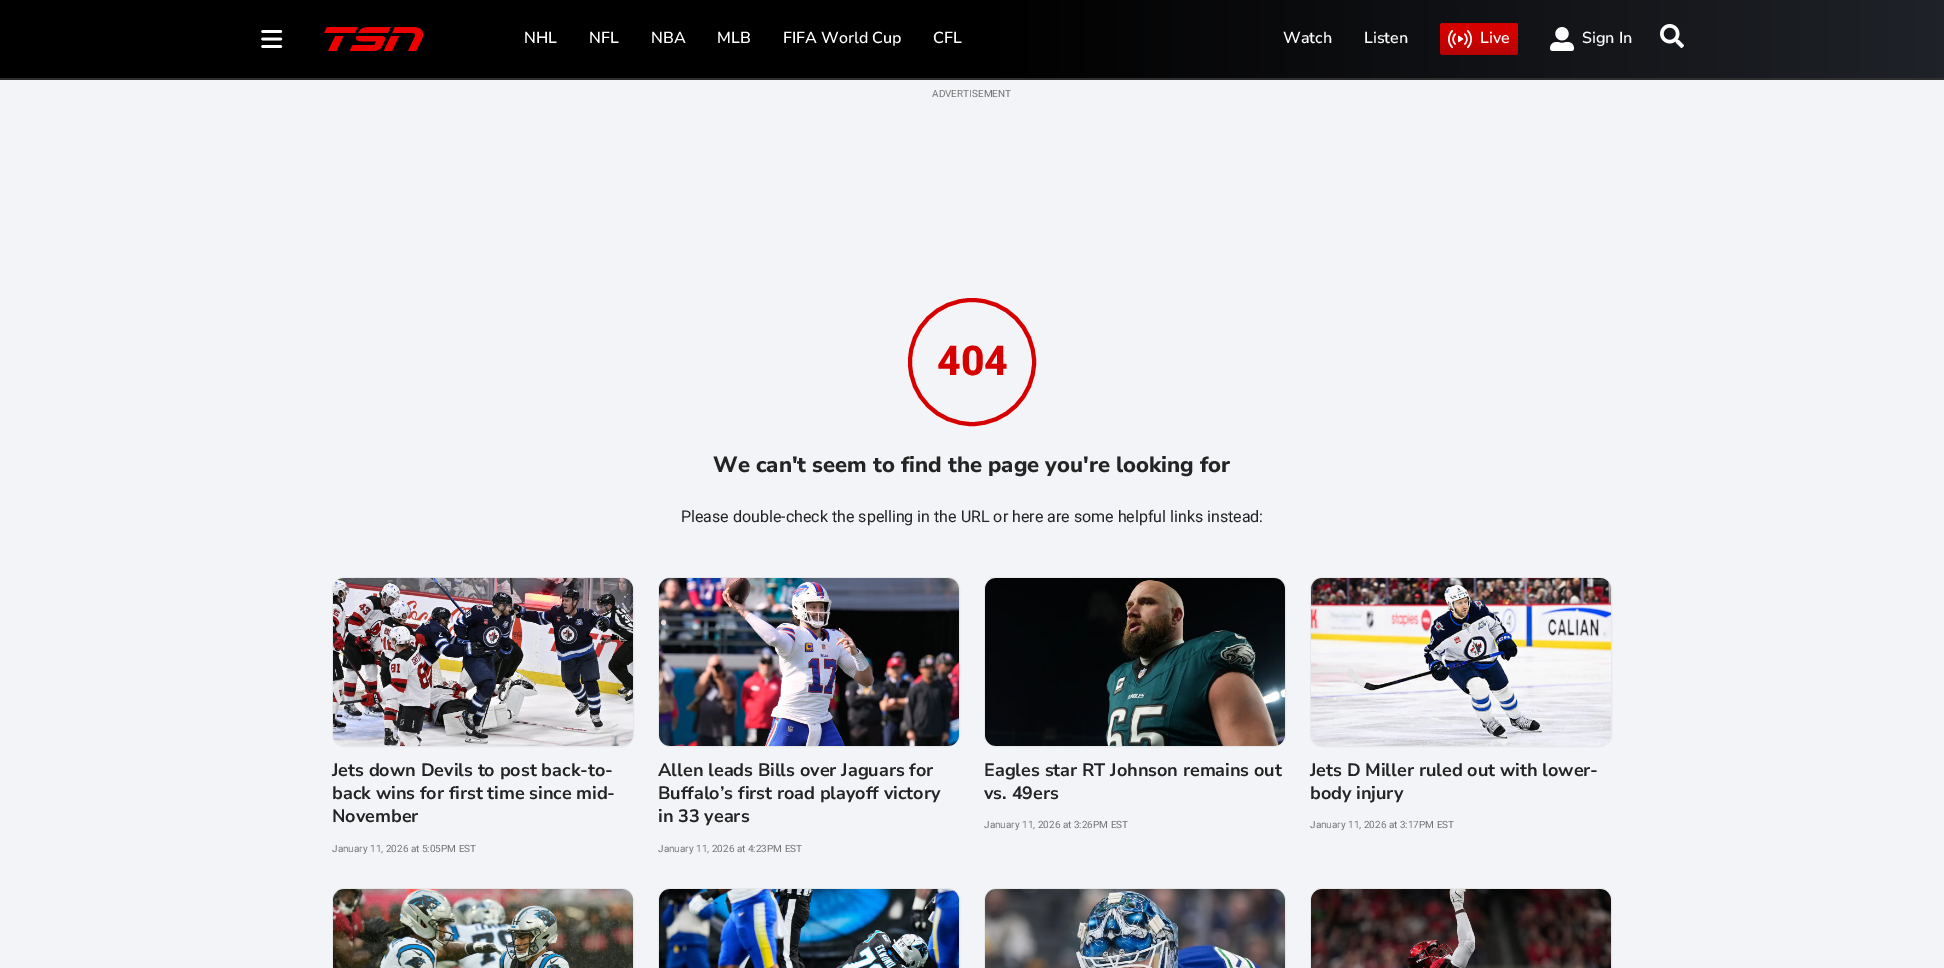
%!PS-Adobe-3.0
%%BoundingBox: 0 0 1944 968
%%LanguageLevel: 3
%%Pages: 1
%%EndComments
%%BeginProlog
/m { moveto } bind def
/l { lineto } bind def
/h { closepath } bind def
/S { stroke } bind def
/q { gsave } bind def
/Q { grestore } bind def
/w { setlinewidth } bind def
/fn { [ exch dup neg 0 0 3 -1 roll 0 0 ] selectfont } def
/tx { moveto show } def
/bx { rectfill } def
/ci { newpath 0 360 arc closepath } def
/rr { 5 dict begin { /r /h /w /y /x } { exch def } forall
  x r add y moveto x w add y 2 copy h add r arct x w add y h add x 1 index r arct
  x y h add x y r arct x y 2 copy exch w add exch r arct closepath end } def
/im { 5 dict begin { /h /w /y /x /name } { exch def } forall
  gsave x y translate w h scale
  w h 8 [w 0 0 h 0 0] name (r) file false 3 colorimage grestore end } def
%%EndProlog
%%BeginSetup
<< /PageSize [1944 968] >> setpagedevice
%%EndSetup
%%Page: 1 1
0 968 translate 1 -1 scale
4 setmiterlimit
0.949 0.957 0.969 setrgbcolor
0 0 1944 968 bx
q 0 0 m 1944 0 l 1944 78 l 0 78 l h clip newpath
<< /ShadingType 2 /ColorSpace /DeviceRGB /Coords [0 39 1944 39] /Extend [true true] /Function << /FunctionType 3 /Domain [0 1] /Functions [<< /FunctionType 2 /Domain [0 1] /C0 [0 0 0] /C1 [0 0 0] /N 1 >> << /FunctionType 2 /Domain [0 1] /C0 [0 0 0] /C1 [0.122 0.133 0.157] /N 1 >>] /Bounds [0.5] /Encode [0 1 0 1] >> >> shfill Q
0.184 setgray
0 78 1944 2 bx
(image0.raw) 261 30 22 18 im
(image1.raw) 324 27 100 24 im
/NunitoSans-SemiBold 16 fn
1 setgray
(NHL) 524 43 tx
(NFL) 589 43 tx
(NBA) 651 43 tx
(MLB) 717 43 tx
(FIFA World Cup) 783 43 tx
(CFL) 933 43 tx
(Watch) 1283 43 tx
(Listen) 1364 43 tx
q 1440 23 78 32 4 rr clip newpath
<< /ShadingType 2 /ColorSpace /DeviceRGB /Coords [1479 23 1479 78] /Extend [true true] /Function << /FunctionType 3 /Domain [0 1] /Functions [<< /FunctionType 2 /Domain [0 1] /C0 [0.843 0 0] /C1 [0.843 0 0] /N 1 >> << /FunctionType 2 /Domain [0 1] /C0 [0.843 0 0] /C1 [0.573 0.02 0.02] /N 1 >>] /Bounds [0.15] /Encode [0 1 0 1] >> >> shfill Q
(image2.raw) 1448 30 24 19 im
(Live) 1480 43 tx
(image3.raw) 1550 27 24 24 im
(Sign In) 1582 43 tx
(image4.raw) 1660 24 24 24 im
/Roboto-Regular 10 fn
0.459 setgray
(ADVERTISEMENT) 932 97 tx
0.843 0 0 setrgbcolor
4 w
972 362 62 ci S
/Roboto-ExtraBold 41 fn
(404) 937 375 tx
/NunitoSans-ExtraBold 22 fn
0.141 setgray
(We can't seem to find the page you're looking for) 713 472 tx
/Roboto-Regular 16 fn
(Please double-check the spelling in the URL or here are some helpful links instead:) 681 522 tx
0.902 0.91 0.918 setrgbcolor
1 w
332.5 577.5 301 169 11.5 rr S
(image5.raw) 333 578 300 168 im
/NunitoSans-Bold 18 fn
0.141 setgray
(Jets down Devils to post back-to-) 332 776 tx
(back wins for first time since mid-) 332 799 tx
(November) 332 822 tx
/Roboto-Regular 10 fn
0.459 setgray
(January 11, 2026 at 5:05PM EST) 332 852 tx
0.902 0.91 0.918 setrgbcolor
658.5 577.5 301 169 11.5 rr S
(image6.raw) 659 578 300 168 im
/NunitoSans-Bold 18 fn
0.141 setgray
(Allen leads Bills over Jaguars for) 658 776 tx
(Buffalo’s first road playoff victory) 658 799 tx
(in 33 years) 658 822 tx
/Roboto-Regular 10 fn
0.459 setgray
(January 11, 2026 at 4:23PM EST) 658 852 tx
0.902 0.91 0.918 setrgbcolor
984.5 577.5 301 169 11.5 rr S
(image7.raw) 985 578 300 168 im
/NunitoSans-Bold 18 fn
0.141 setgray
(Eagles star RT Johnson remains out) 984 776 tx
(vs. 49ers) 984 799 tx
/Roboto-Regular 10 fn
0.459 setgray
(January 11, 2026 at 3:26PM EST) 984 828 tx
0.902 0.91 0.918 setrgbcolor
1310.5 577.5 301 169 11.5 rr S
(image8.raw) 1311 578 300 168 im
/NunitoSans-Bold 18 fn
0.141 setgray
(Jets D Miller ruled out with lower-) 1310 776 tx
(body injury) 1310 799 tx
/Roboto-Regular 10 fn
0.459 setgray
(January 11, 2026 at 3:17PM EST) 1310 828 tx
0.902 0.91 0.918 setrgbcolor
332.5 888.5 301 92 11.5 rr S
(image9.raw) 333 889 300 79 im
658.5 888.5 301 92 11.5 rr S
(image10.raw) 659 889 300 79 im
984.5 888.5 301 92 11.5 rr S
(image11.raw) 985 889 300 79 im
1310.5 888.5 301 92 11.5 rr S
(image12.raw) 1311 889 300 79 im
showpage
%%EOF
